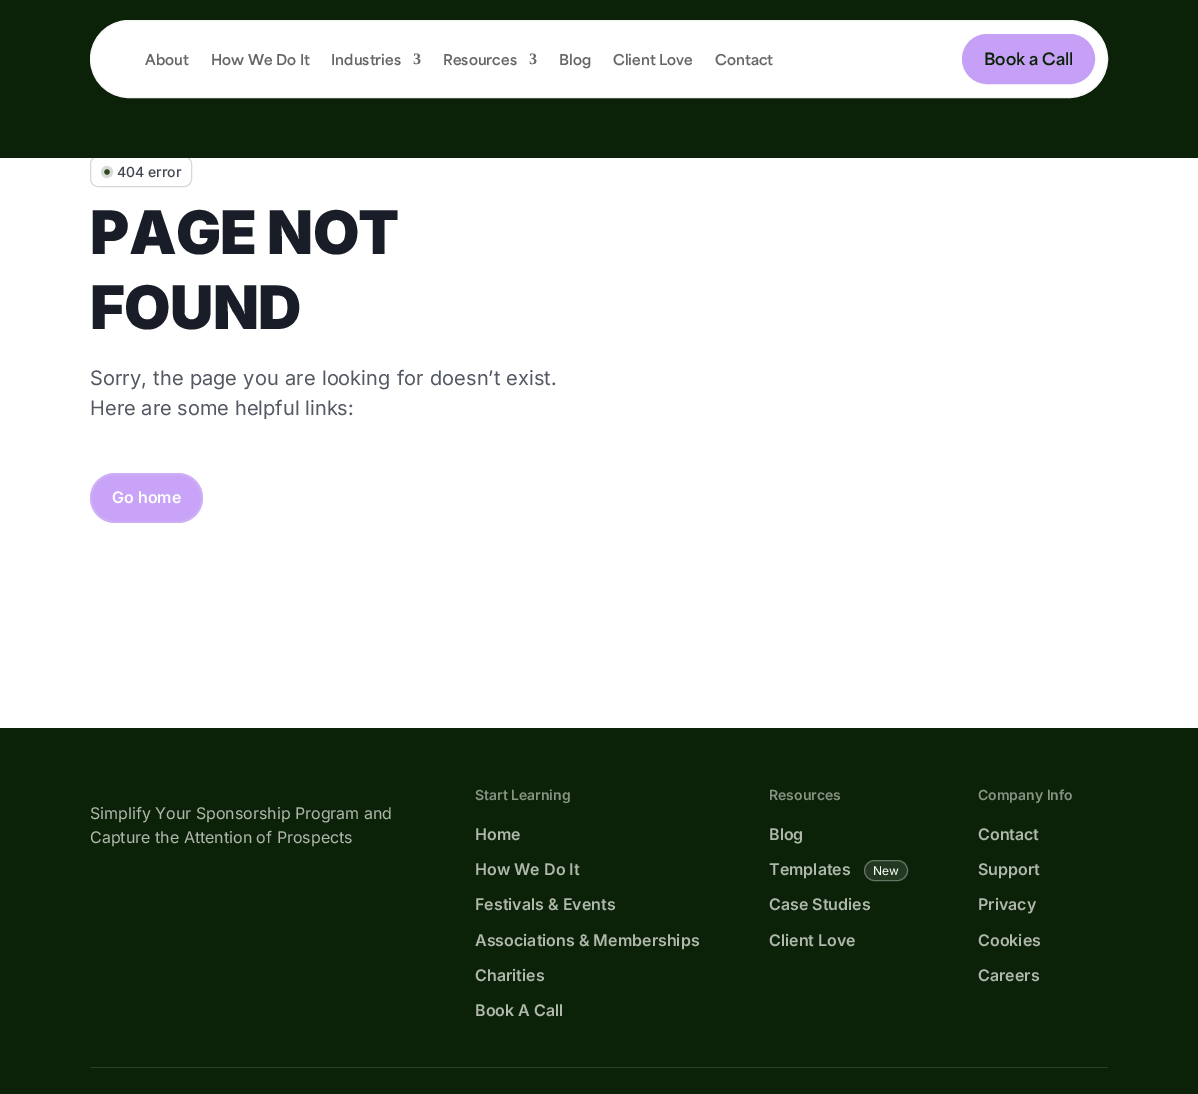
%!PS-Adobe-3.0
%%BoundingBox: 0 0 1198 1094
%%LanguageLevel: 3
%%Pages: 1
%%EndComments
%%BeginProlog
/m { moveto } bind def
/f { fill } bind def
/S { stroke } bind def
/q { gsave } bind def
/Q { grestore } bind def
/w { setlinewidth } bind def
/fn { [ exch dup neg 0 0 3 -1 roll 0 0 ] selectfont } def
/tx { moveto show } def
/bx { rectfill } def
/al { dup .setfillconstantalpha .setstrokeconstantalpha } def
/ci { newpath 0 360 arc closepath } def
/rr { 5 dict begin { /r /h /w /y /x } { exch def } forall
  x r add y moveto x w add y 2 copy h add r arct x w add y h add x 1 index r arct
  x y h add x y r arct x y 2 copy exch w add exch r arct closepath end } def
%%EndProlog
%%BeginSetup
<< /PageSize [1198 1094] /PageUsesTransparency true >> setpagedevice
%%EndSetup
%%Page: 1 1
0 .pushpdf14devicefilter
0 1094 translate 1 -1 scale
4 setmiterlimit
1 setgray
0 0 1198 1094 bx
0.835 0.843 0.855 setrgbcolor
90.5 156.5 101 30 7.5 rr S
0.043 0.133 0.031 setrgbcolor
0 0 1198 158 bx
1 setgray
90.5 20.5 1017 77 38.5 rr q f Q
0.961 setgray
S
/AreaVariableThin-Bold 14 fn
0.4 setgray
(About) 145 65 tx
(How We Do It) 211 65 tx
(Industries) 331 65 tx
/LiberationSerif-Bold 16 fn
(3) 413 64 tx
/AreaVariableThin-Bold 14 fn
(Resources) 443 65 tx
/LiberationSerif-Bold 16 fn
(3) 529 64 tx
/AreaVariableThin-Bold 14 fn
(Blog) 559 65 tx
(Client Love) 613 65 tx
(Contact) 715 65 tx
0.776 0.627 0.969 setrgbcolor
963 35 131 48 24 rr q f Q
2 w
S
/AreaVariableThin-Bold 16 fn
0.039 0.137 0.027 setrgbcolor
(Book a Call) 984 65 tx
0.184 0.271 0.141 setrgbcolor
107 172 4.5 ci q f Q
0.843 0.859 0.835 setrgbcolor
3 w
S
/Inter-Medium 14 fn
0.255 0.275 0.318 setrgbcolor
(404 error) 117 177 tx
/Inter-Black 60 fn
0.094 0.114 0.153 setrgbcolor
90 254 m -0.75 0 (PAGE NOT) ashow
90 329 m -0.75 0 (FOUND) ashow
/Inter-Regular 20 fn
0.325 0.345 0.384 setrgbcolor
90 385 m 0.75 0 32 (Sorry, the page you are looking for doesn’t exist.) widthshow
(Here are some helpful links:) 90 415 tx
0.784 0.639 0.969 setrgbcolor
90 473 113 50 25 rr f
0.12 al
1 setgray
2 w
91 474 111 48 24 rr S
/Inter-SemiBold 16 fn
1 al
(Go home) 112 503 tx
0.043 0.133 0.031 setrgbcolor
0 728 1198 366 bx
/Inter-Regular 16 fn
0.69 0.722 0.671 setrgbcolor
(Simplify Your Sponsorship Program and) 90 819 tx
(Capture the Attention of Prospects) 90 843 tx
/Inter-SemiBold 14 fn
0.533 0.58 0.51 setrgbcolor
(Start Learning) 475 800 tx
/Inter-SemiBold 16 fn
0.69 0.722 0.671 setrgbcolor
(Home) 475 840 tx
(How We Do It) 475 875 tx
(Festivals & Events) 475 910 tx
(Associations & Memberships) 475 946 tx
(Charities) 475 981 tx
(Book A Call) 475 1016 tx
/Inter-SemiBold 14 fn
0.533 0.58 0.51 setrgbcolor
(Resources) 769 800 tx
/Inter-SemiBold 16 fn
0.69 0.722 0.671 setrgbcolor
(Blog) 769 840 tx
(Templates) 769 875 tx
0.137 0.22 0.129 setrgbcolor
864 860 44 21 10.5 rr f
0.3 al
1 setgray
1 w
864.5 860.5 43 20 10 rr S
/Inter-Regular 12 fn
1 al
(New) 873 875 tx
/Inter-SemiBold 16 fn
0.69 0.722 0.671 setrgbcolor
(Case Studies) 769 910 tx
(Client Love) 769 946 tx
/Inter-SemiBold 14 fn
0.533 0.58 0.51 setrgbcolor
(Company Info) 978 800 tx
/Inter-SemiBold 16 fn
0.69 0.722 0.671 setrgbcolor
(Contact) 978 840 tx
(Support) 978 875 tx
(Privacy) 978 910 tx
(Cookies) 978 946 tx
(Careers) 978 981 tx
0.18 0.243 0.145 setrgbcolor
90 1067 1018 1 bx
.poppdf14devicefilter showpage
%%EOF
